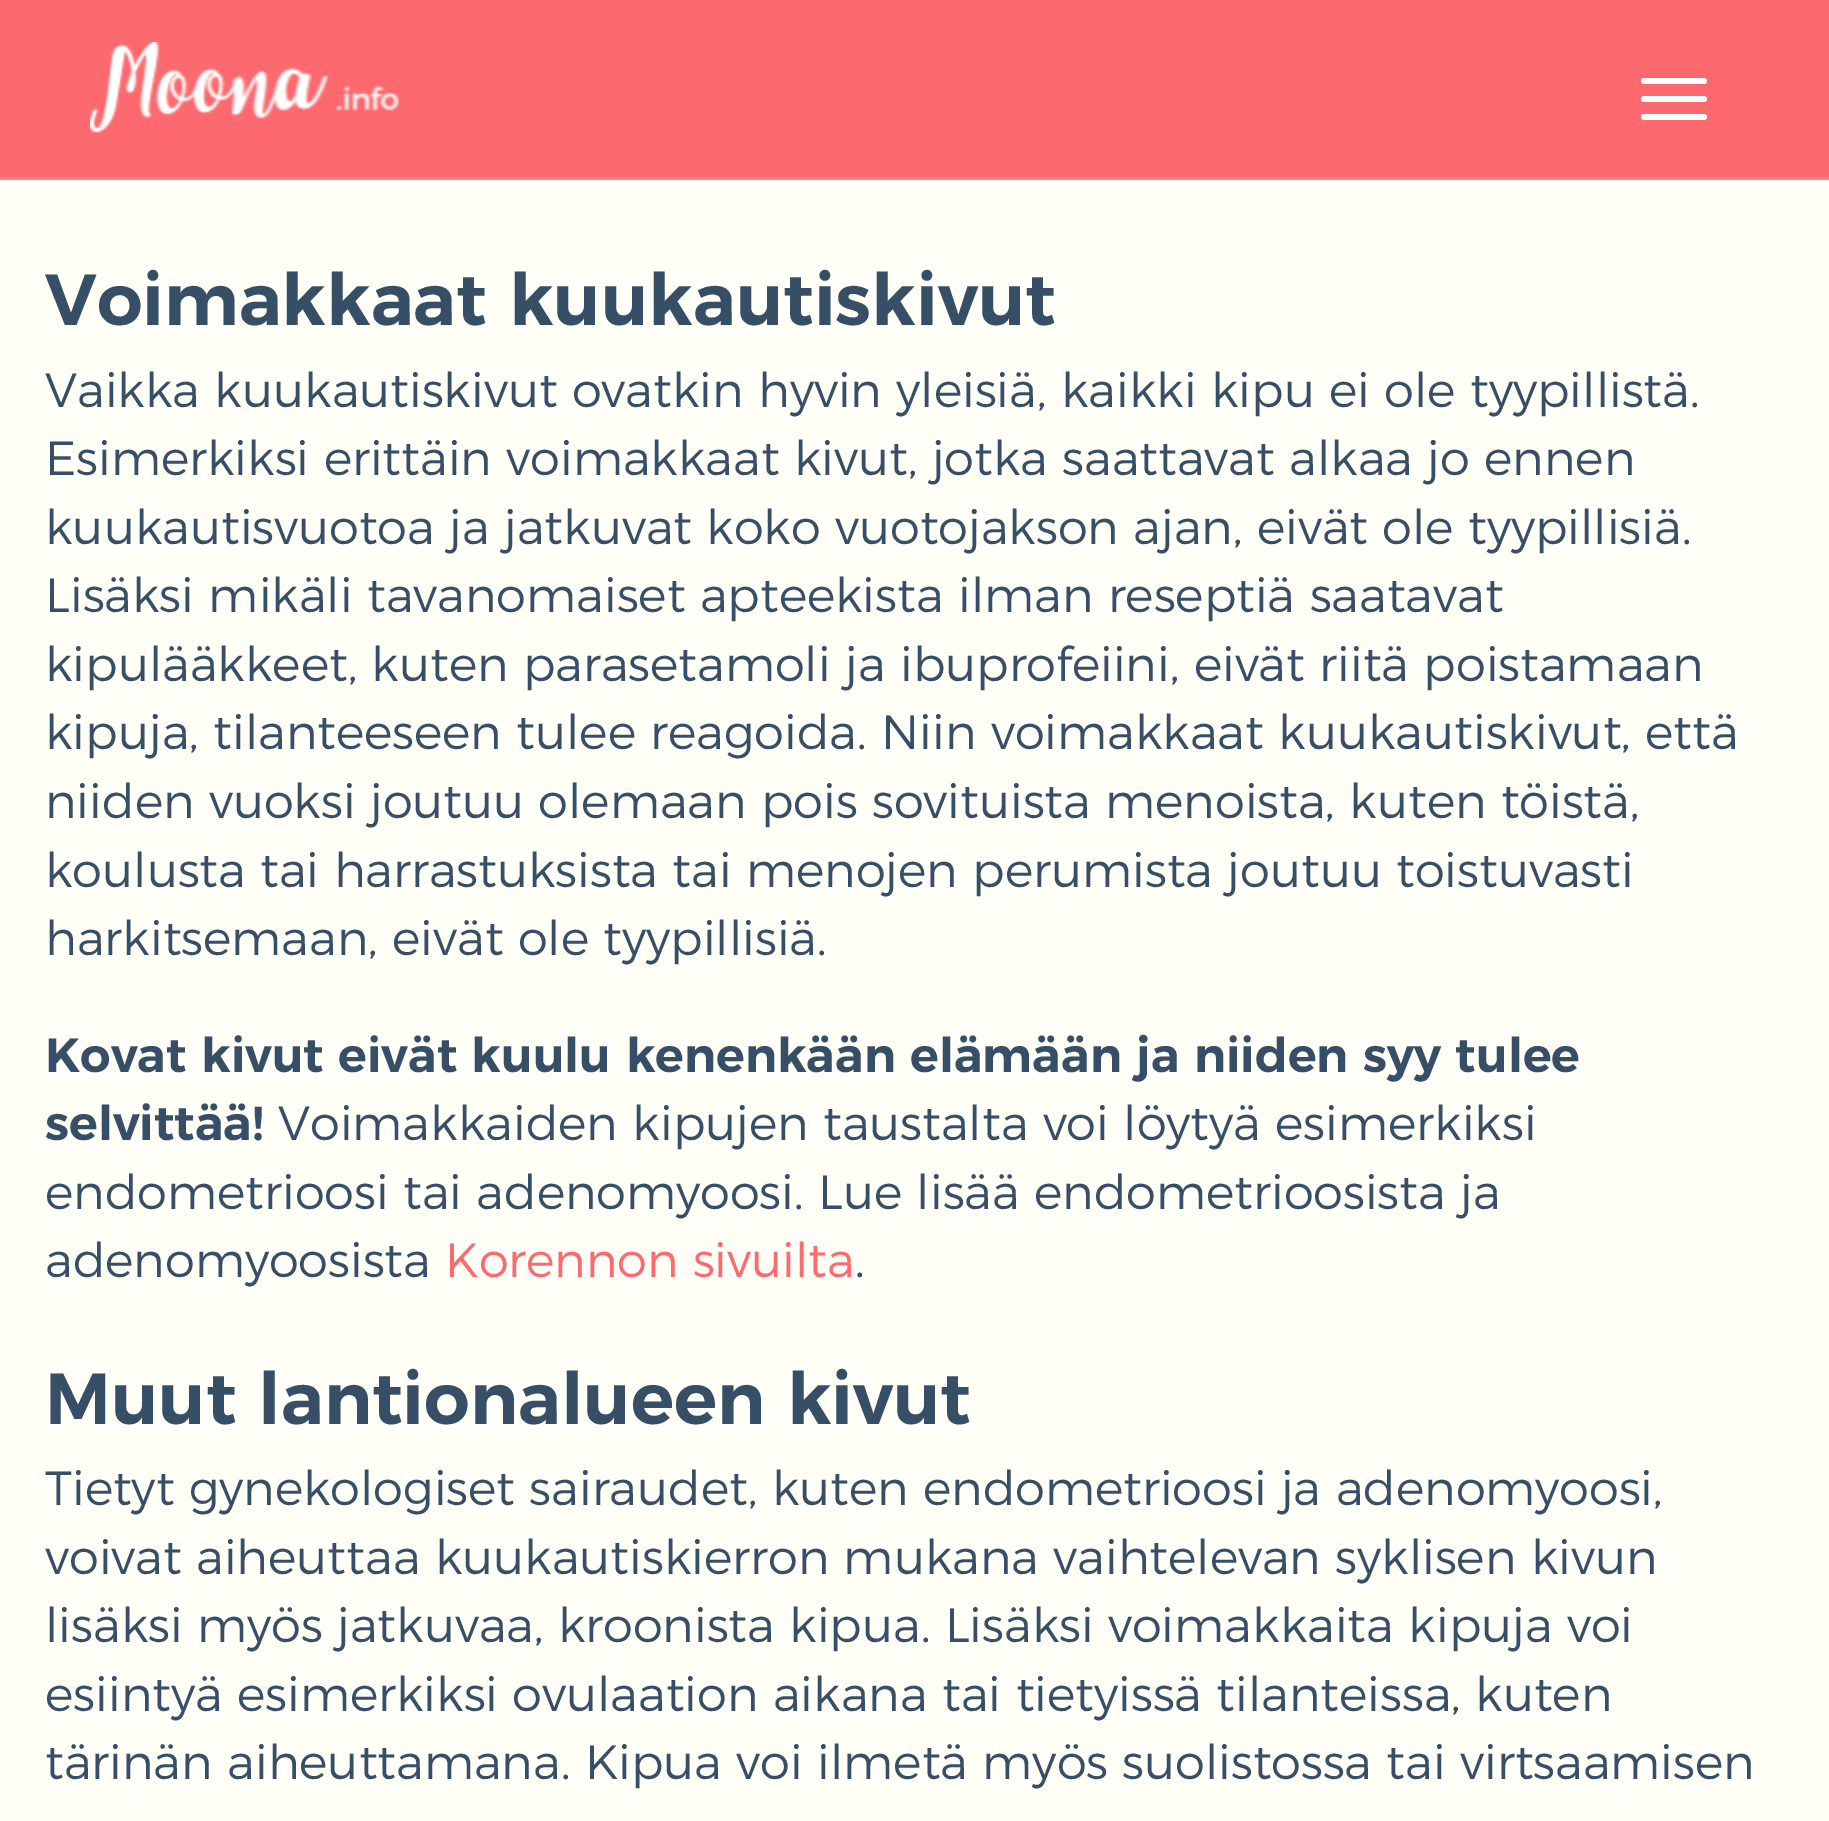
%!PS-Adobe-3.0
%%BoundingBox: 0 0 1829 1821
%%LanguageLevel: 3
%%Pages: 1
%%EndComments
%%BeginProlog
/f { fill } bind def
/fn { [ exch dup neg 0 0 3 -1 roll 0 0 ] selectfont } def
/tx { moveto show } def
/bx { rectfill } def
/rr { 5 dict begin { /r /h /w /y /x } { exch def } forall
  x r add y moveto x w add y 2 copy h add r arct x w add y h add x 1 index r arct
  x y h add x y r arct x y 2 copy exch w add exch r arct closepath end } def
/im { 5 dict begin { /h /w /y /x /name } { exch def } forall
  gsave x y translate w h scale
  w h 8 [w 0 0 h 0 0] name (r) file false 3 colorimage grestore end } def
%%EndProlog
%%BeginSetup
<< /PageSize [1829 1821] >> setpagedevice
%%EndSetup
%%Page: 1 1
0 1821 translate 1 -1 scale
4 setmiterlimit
1 0.996 0.969 setrgbcolor
0 0 1829 1821 bx
0.988 0.412 0.431 setrgbcolor
0 0 1829 177 bx
1 0.506 0.522 setrgbcolor
0 177 1829 3 bx
(image0.raw) 90 42 309 91 im
1 setgray
1641 78 66 6 3 rr f
1641 96 66 6 3 rr f
1641 114 66 6 3 rr f
/Montserrat-SemiBold 72 fn
0.216 0.31 0.4 setrgbcolor
(Voimakkaat kuukautiskivut) 45 325 tx
/Montserrat-Light 48 fn
(Vaikka kuukautiskivut ovatkin hyvin yleisiä, kaikki kipu ei ole tyypillistä.) 45 407 tx
(Esimerkiksi erittäin voimakkaat kivut, jotka saattavat alkaa jo ennen) 45 475 tx
(kuukautisvuotoa ja jatkuvat koko vuotojakson ajan, eivät ole tyypillisiä.) 45 544 tx
(Lisäksi mikäli tavanomaiset apteekista ilman reseptiä saatavat) 45 612 tx
(kipulääkkeet, kuten parasetamoli ja ibuprofeiini, eivät riitä poistamaan) 45 681 tx
(kipuja, tilanteeseen tulee reagoida. Niin voimakkaat kuukautiskivut, että) 45 749 tx
(niiden vuoksi joutuu olemaan pois sovituista menoista, kuten töistä,) 45 818 tx
(koulusta tai harrastuksista tai menojen perumista joutuu toistuvasti) 45 887 tx
(harkitsemaan, eivät ole tyypillisiä.) 45 955 tx
/Montserrat-SemiBold 48 fn
(Kovat kivut eivät kuulu kenenkään elämään ja niiden syy tulee) 45 1072 tx
(selvittää!) 45 1140 tx
/Montserrat-Light 48 fn
(Voimakkaiden kipujen taustalta voi löytyä esimerkiksi) 278 1140 tx
(endometrioosi tai adenomyoosi. Lue lisää endometrioosista ja) 45 1209 tx
(adenomyoosista) 45 1277 tx
0.988 0.412 0.431 setrgbcolor
(Korennon sivuilta) 445 1277 tx
0.216 0.31 0.4 setrgbcolor
(.) 855 1277 tx
/Montserrat-SemiBold 72 fn
(Muut lantionalueen kivut) 45 1424 tx
/Montserrat-Light 48 fn
(Tietyt gynekologiset sairaudet, kuten endometrioosi ja adenomyoosi,) 45 1505 tx
(voivat aiheuttaa kuukautiskierron mukana vaihtelevan syklisen kivun) 45 1574 tx
(lisäksi myös jatkuvaa, kroonista kipua. Lisäksi voimakkaita kipuja voi) 45 1642 tx
(esiintyä esimerkiksi ovulaation aikana tai tietyissä tilanteissa, kuten) 45 1711 tx
(tärinän aiheuttamana. Kipua voi ilmetä myös suolistossa tai virtsaamisen) 45 1779 tx
showpage
%%EOF
